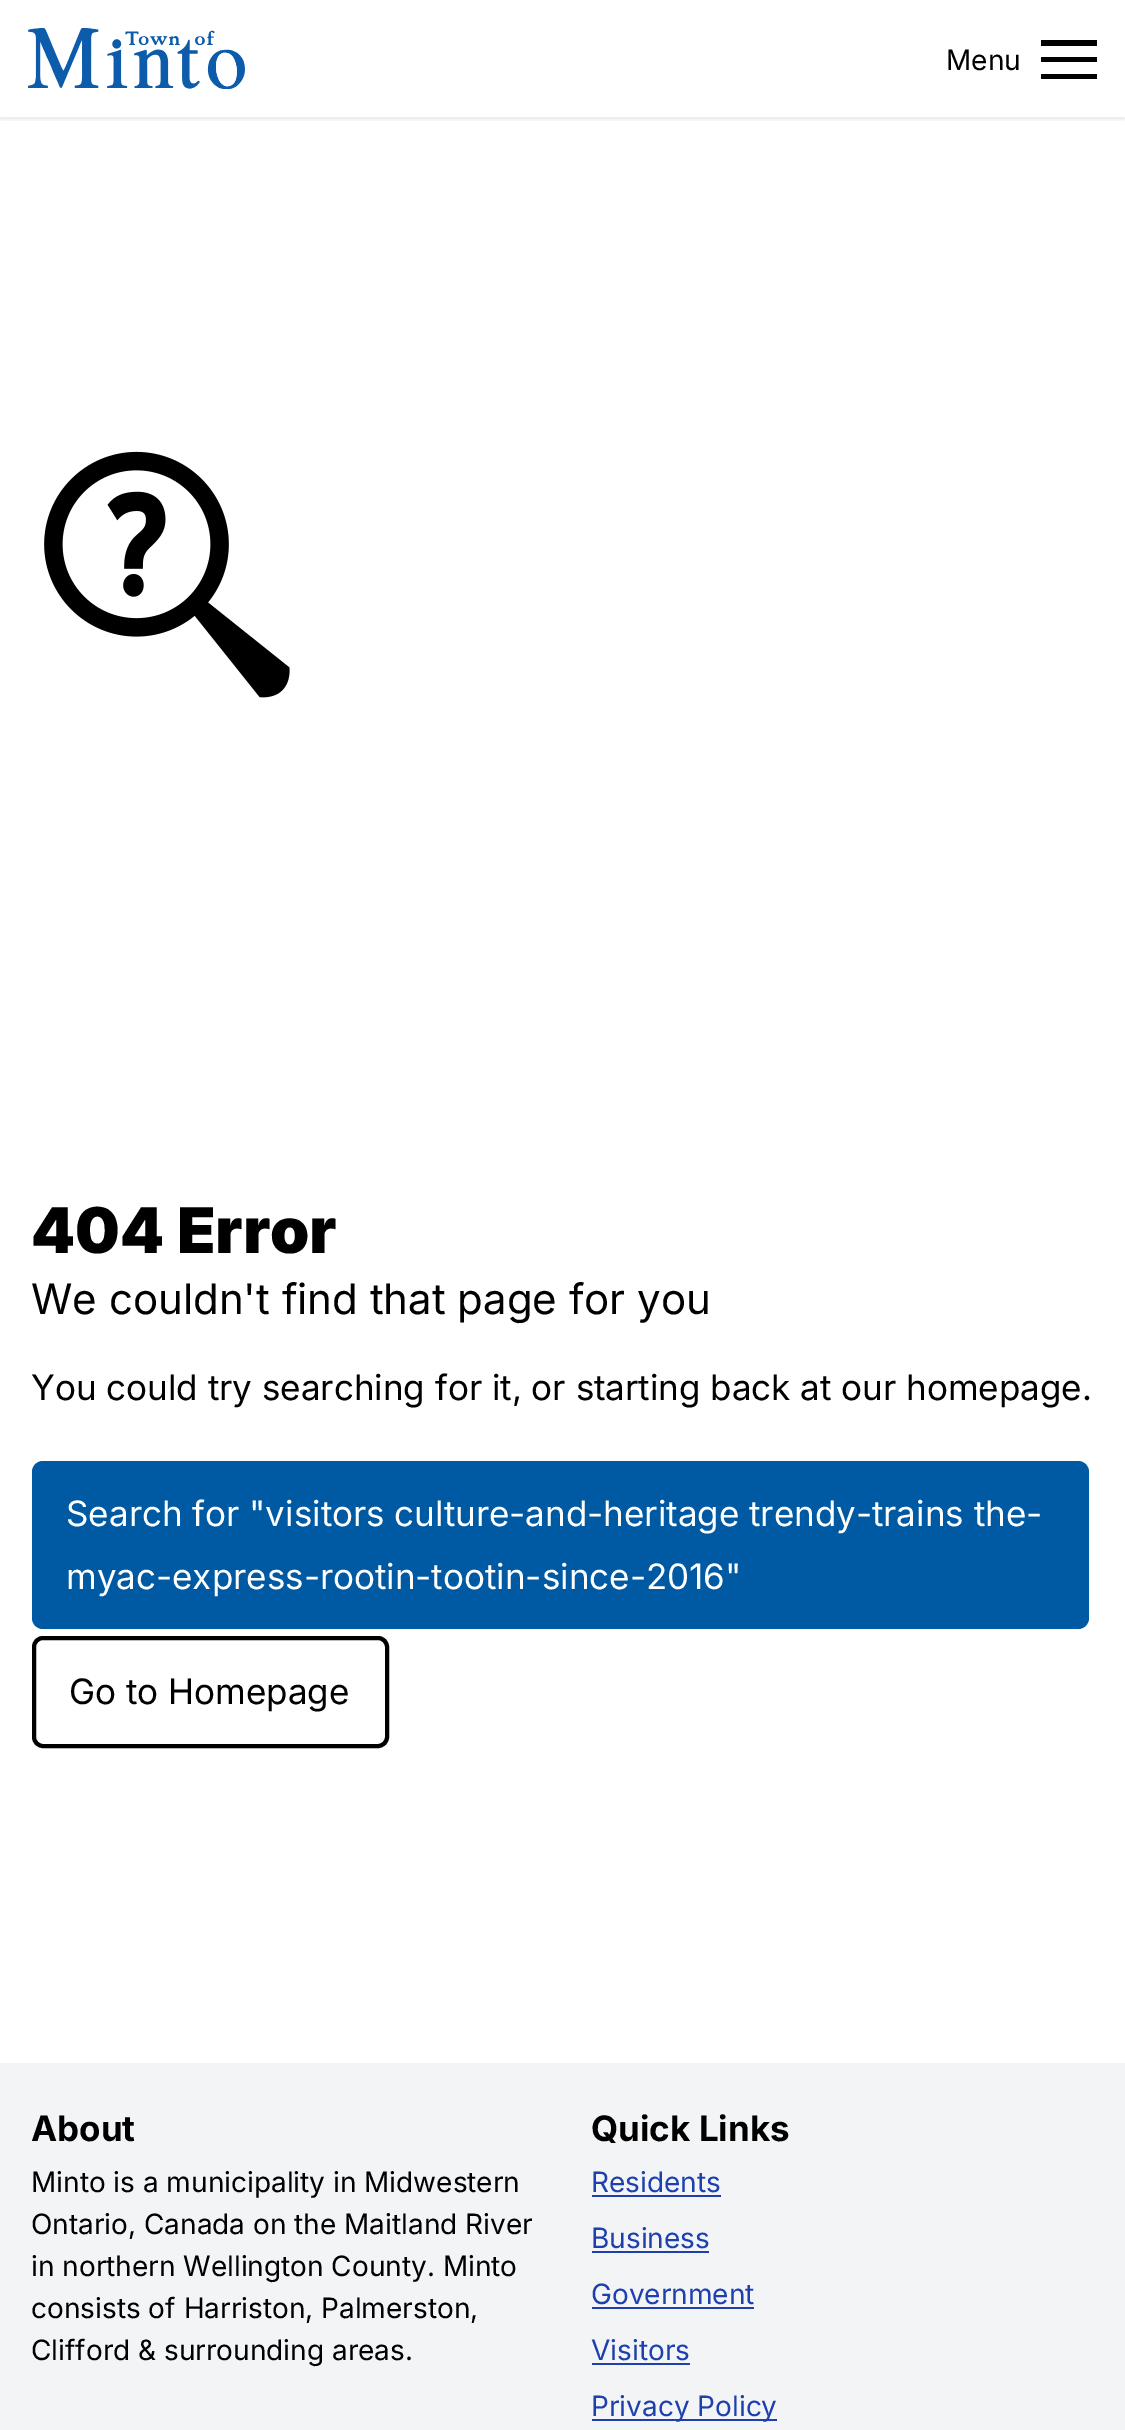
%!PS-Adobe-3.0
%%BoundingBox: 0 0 1125 2430
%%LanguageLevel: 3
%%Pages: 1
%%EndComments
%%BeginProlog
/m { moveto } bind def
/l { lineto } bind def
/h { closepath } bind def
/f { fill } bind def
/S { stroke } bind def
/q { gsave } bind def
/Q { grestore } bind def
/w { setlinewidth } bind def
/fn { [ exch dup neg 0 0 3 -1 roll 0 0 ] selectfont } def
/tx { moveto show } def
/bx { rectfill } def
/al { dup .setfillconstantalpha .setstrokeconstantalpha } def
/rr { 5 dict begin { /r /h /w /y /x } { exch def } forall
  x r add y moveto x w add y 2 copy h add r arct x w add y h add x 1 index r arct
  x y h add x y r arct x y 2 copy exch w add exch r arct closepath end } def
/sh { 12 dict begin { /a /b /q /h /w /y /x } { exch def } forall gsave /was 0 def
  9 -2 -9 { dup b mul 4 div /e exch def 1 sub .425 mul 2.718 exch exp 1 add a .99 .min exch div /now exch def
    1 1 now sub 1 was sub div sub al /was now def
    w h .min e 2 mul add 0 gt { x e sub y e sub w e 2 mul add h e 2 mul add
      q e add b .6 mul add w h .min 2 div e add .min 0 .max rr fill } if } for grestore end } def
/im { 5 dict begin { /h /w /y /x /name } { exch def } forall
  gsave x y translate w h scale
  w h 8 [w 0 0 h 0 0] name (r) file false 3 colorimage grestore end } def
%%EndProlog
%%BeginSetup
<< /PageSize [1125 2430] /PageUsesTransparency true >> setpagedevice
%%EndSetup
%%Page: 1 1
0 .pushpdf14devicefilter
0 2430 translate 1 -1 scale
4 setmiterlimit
1 setgray
0 0 1125 2430 bx
q
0 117 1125 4 rectclip
0 setgray
0 2 1125 117 0 2.5 0.1 sh
Q
(image0.raw) 28 28 217 61 im
/Inter-Regular 28 fn
0 setgray
(Menu) 946 70 tx
1041 40 m 1041 46 l 1097 46 l 1097 40 l h 1041 57 m 1041 62 l 1097 62 l 1097 57 l h 1041 74 m 1041 79 l 1097 79 l 1097 74 l h f
(image1.raw) 44 451 246 247 im
/Inter-Black 63 fn
(404 Error) 31 1253 tx
/Inter-Regular 42 fn
(We couldn't find that page for you) 31 1314 tx
/Inter-Regular 35 fn
(You could try searching for it, or starting back at our homepage.) 31 1400 tx
0 0.353 0.639 setrgbcolor
32 1461 1057 168 11 rr f
1 setgray
(Search for "visitors culture-and-heritage trendy-trains the-) 66 1526 tx
(myac-express-rootin-tootin-since-2016") 66 1589 tx
0 setgray
4 w
34 1638 353 108 9 rr S
(Go to Homepage) 69 1704 tx
0.953 0.957 0.965 setrgbcolor
0 2063 1125 367 bx
/Inter-Bold 35 fn
0 setgray
(About) 31 2141 tx
/Inter-Regular 28 fn
(Minto is a municipality in Midwestern) 31 2192 tx
(Ontario, Canada on the Maitland River) 31 2234 tx
(in northern Wellington County. Minto) 31 2276 tx
(consists of Harriston, Palmerston,) 31 2318 tx
(Clifford & surrounding areas.) 31 2360 tx
/Inter-Bold 35 fn
(Quick Links) 591 2141 tx
/Inter-Regular 28 fn
0.118 0.251 0.686 setrgbcolor
(Residents) 591 2192 tx
592 2195 129 2 bx
(Business) 591 2248 tx
592 2251 117 2 bx
(Government) 591 2304 tx
592 2307 162 2 bx
(Visitors) 591 2360 tx
592 2363 98 2 bx
592 2419 185 2 bx
(Privacy Policy) 591 2416 tx
.poppdf14devicefilter showpage
%%EOF
